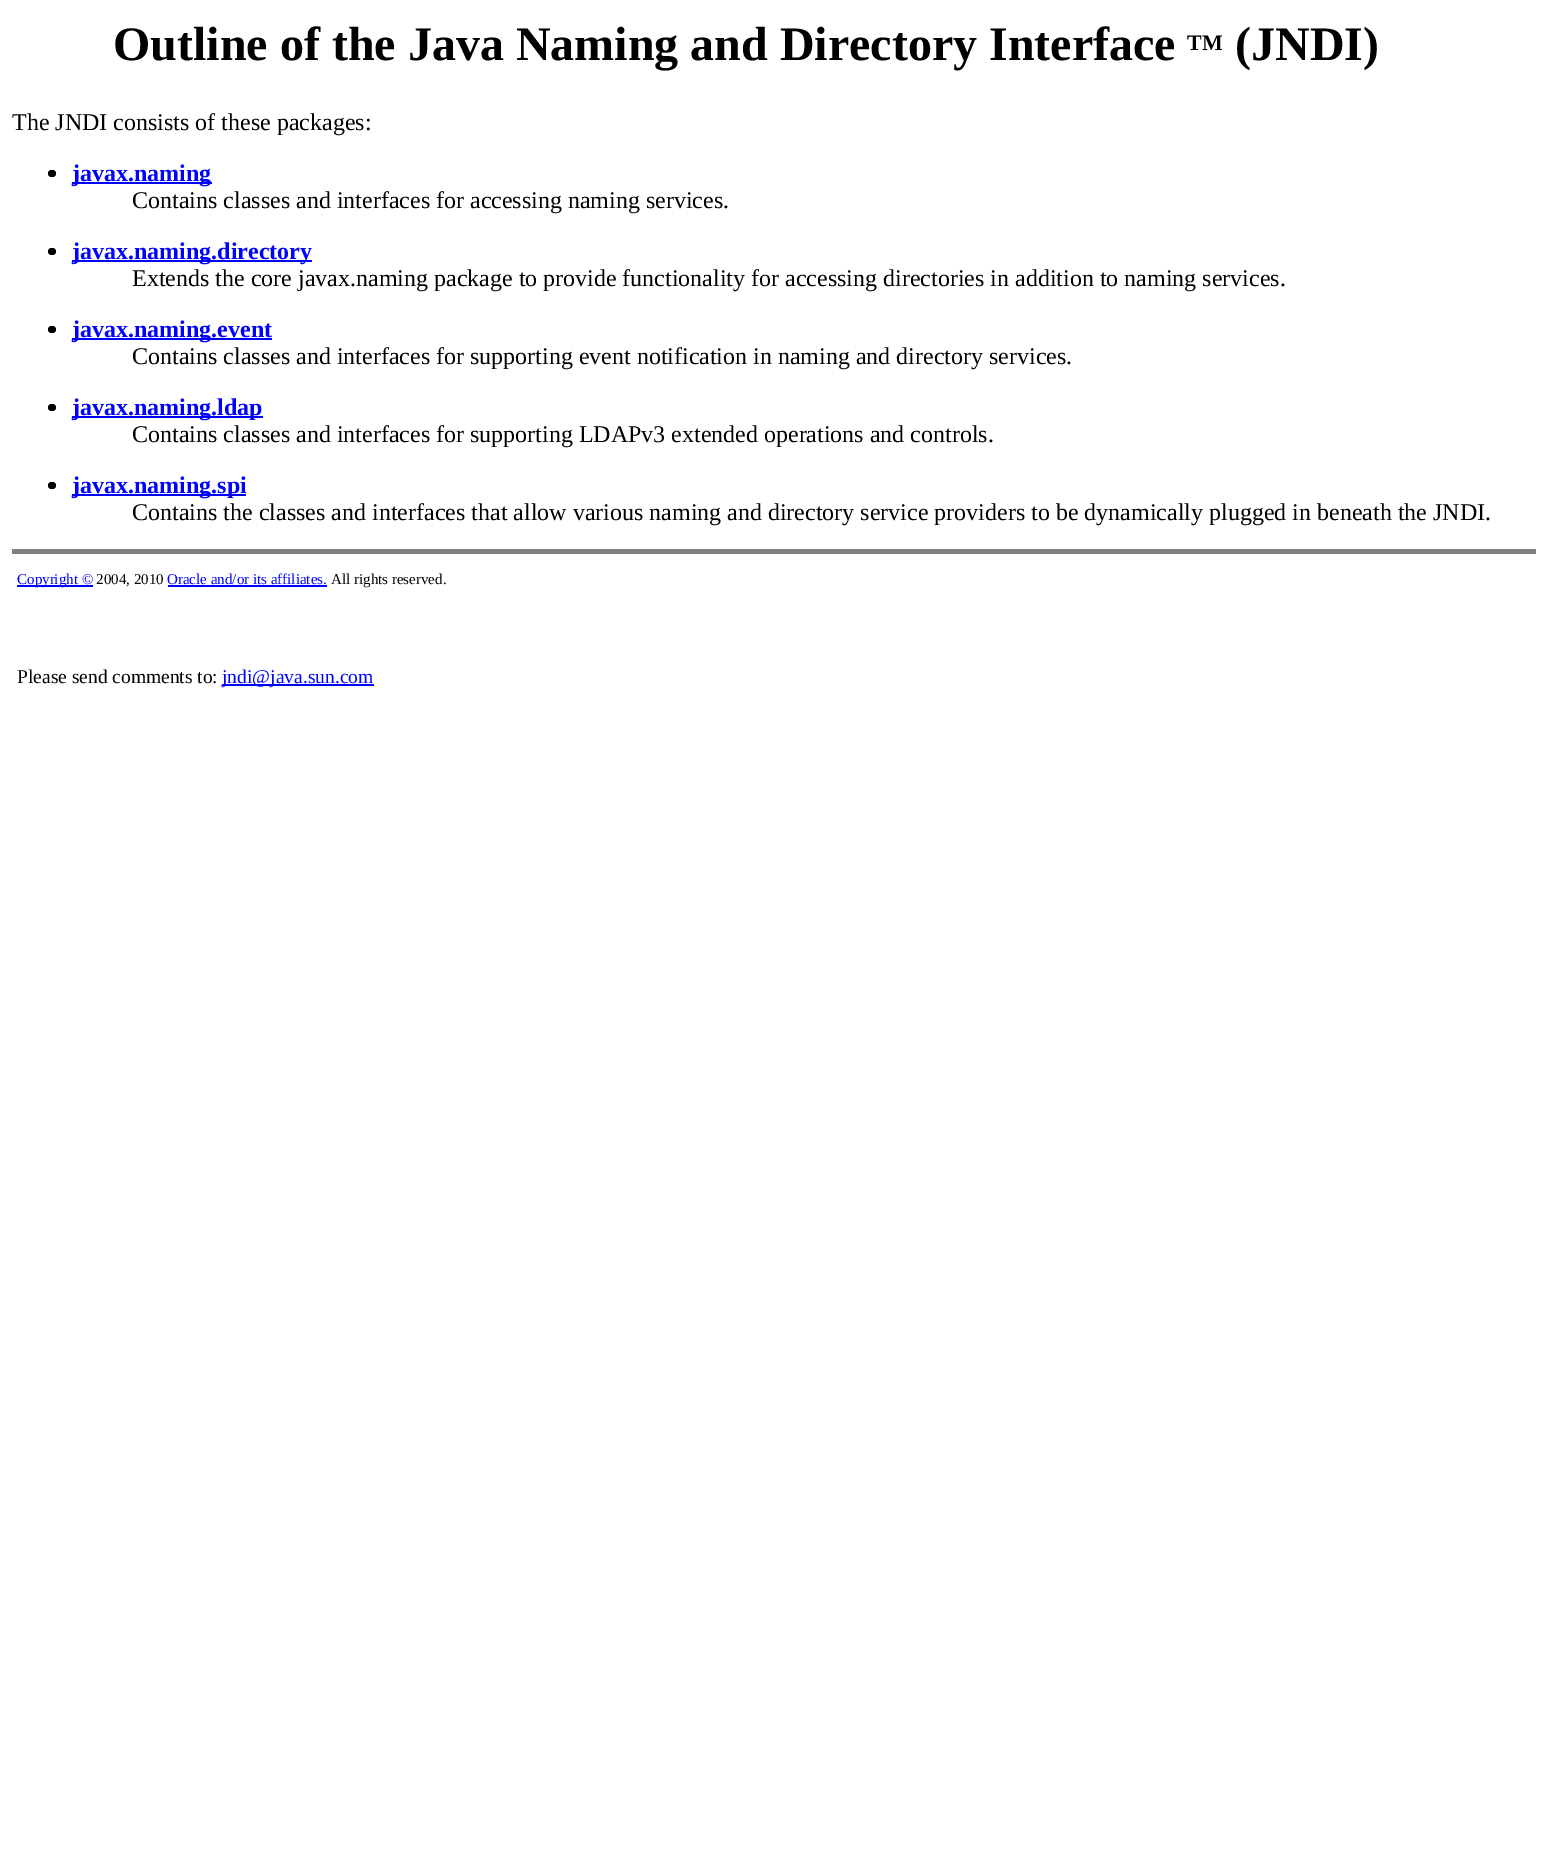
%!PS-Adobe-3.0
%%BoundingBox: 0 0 1547 1855
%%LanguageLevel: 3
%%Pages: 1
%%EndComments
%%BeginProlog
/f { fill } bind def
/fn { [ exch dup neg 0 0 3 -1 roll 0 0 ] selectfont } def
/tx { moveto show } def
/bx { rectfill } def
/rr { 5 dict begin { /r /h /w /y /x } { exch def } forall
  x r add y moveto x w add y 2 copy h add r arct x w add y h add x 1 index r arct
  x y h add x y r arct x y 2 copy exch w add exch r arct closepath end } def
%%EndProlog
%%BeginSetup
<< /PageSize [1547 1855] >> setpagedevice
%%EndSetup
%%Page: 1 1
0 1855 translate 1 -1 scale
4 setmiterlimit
1 setgray
0 0 1547 1855 bx
/LiberationSerif-Bold 48 fn
0 setgray
(Outline of the Java Naming and Directory Interface) 113 60 tx
/LiberationSerif-Bold 22 fn
(TM) 1187 50 tx
/LiberationSerif-Bold 48 fn
(\(JNDI\)) 1235 60 tx
/LiberationSerif-Regular 24 fn
(The JNDI consists of these packages:) 12 130 tx
48 170 8 7 3.5 rr f
0 0 1 setrgbcolor
72 182 140 2 bx
/LiberationSerif-Bold 24 fn
(javax.naming) 72 181 tx
/LiberationSerif-Regular 24 fn
0 setgray
(Contains classes and interfaces for accessing naming services.) 132 208 tx
48 248 8 7 3.5 rr f
0 0 1 setrgbcolor
72 260 240 2 bx
/LiberationSerif-Bold 24 fn
(javax.naming.directory) 72 259 tx
/LiberationSerif-Regular 24 fn
0 setgray
(Extends the core javax.naming package to provide functionality for accessing directories in addition to naming services.) 132 286 tx
48 326 8 7 3.5 rr f
0 0 1 setrgbcolor
72 338 200 2 bx
/LiberationSerif-Bold 24 fn
(javax.naming.event) 72 337 tx
/LiberationSerif-Regular 24 fn
0 setgray
(Contains classes and interfaces for supporting event notification in naming and directory services.) 132 364 tx
48 404 8 7 3.5 rr f
0 0 1 setrgbcolor
72 416 191 2 bx
/LiberationSerif-Bold 24 fn
(javax.naming.ldap) 72 415 tx
/LiberationSerif-Regular 24 fn
0 setgray
(Contains classes and interfaces for supporting LDAPv3 extended operations and controls.) 132 442 tx
48 482 8 7 3.5 rr f
0 0 1 setrgbcolor
72 494 174 2 bx
/LiberationSerif-Bold 24 fn
(javax.naming.spi) 72 493 tx
/LiberationSerif-Regular 24 fn
0 setgray
(Contains the classes and interfaces that allow various naming and directory service providers to be dynamically plugged in beneath the JNDI.) 132 520 tx
0.502 setgray
12 549 1524 5 bx
0 0 1 setrgbcolor
17 585 76 2 bx
/LiberationSerif-Regular 15 fn
(Copyright ©) 17 584 tx
0 setgray
(2004, 2010) 96 584 tx
0 0 1 setrgbcolor
(Oracle and/or its affiliates.) 167 584 tx
168 585 159 2 bx
0 setgray
(All rights reserved.) 331 584 tx
/LiberationSerif-Regular 19.5 fn
(Please send comments to:) 17 683 tx
0 0 1 setrgbcolor
222 684 152 2 bx
(jndi@java.sun.com) 222 683 tx
showpage
%%EOF
